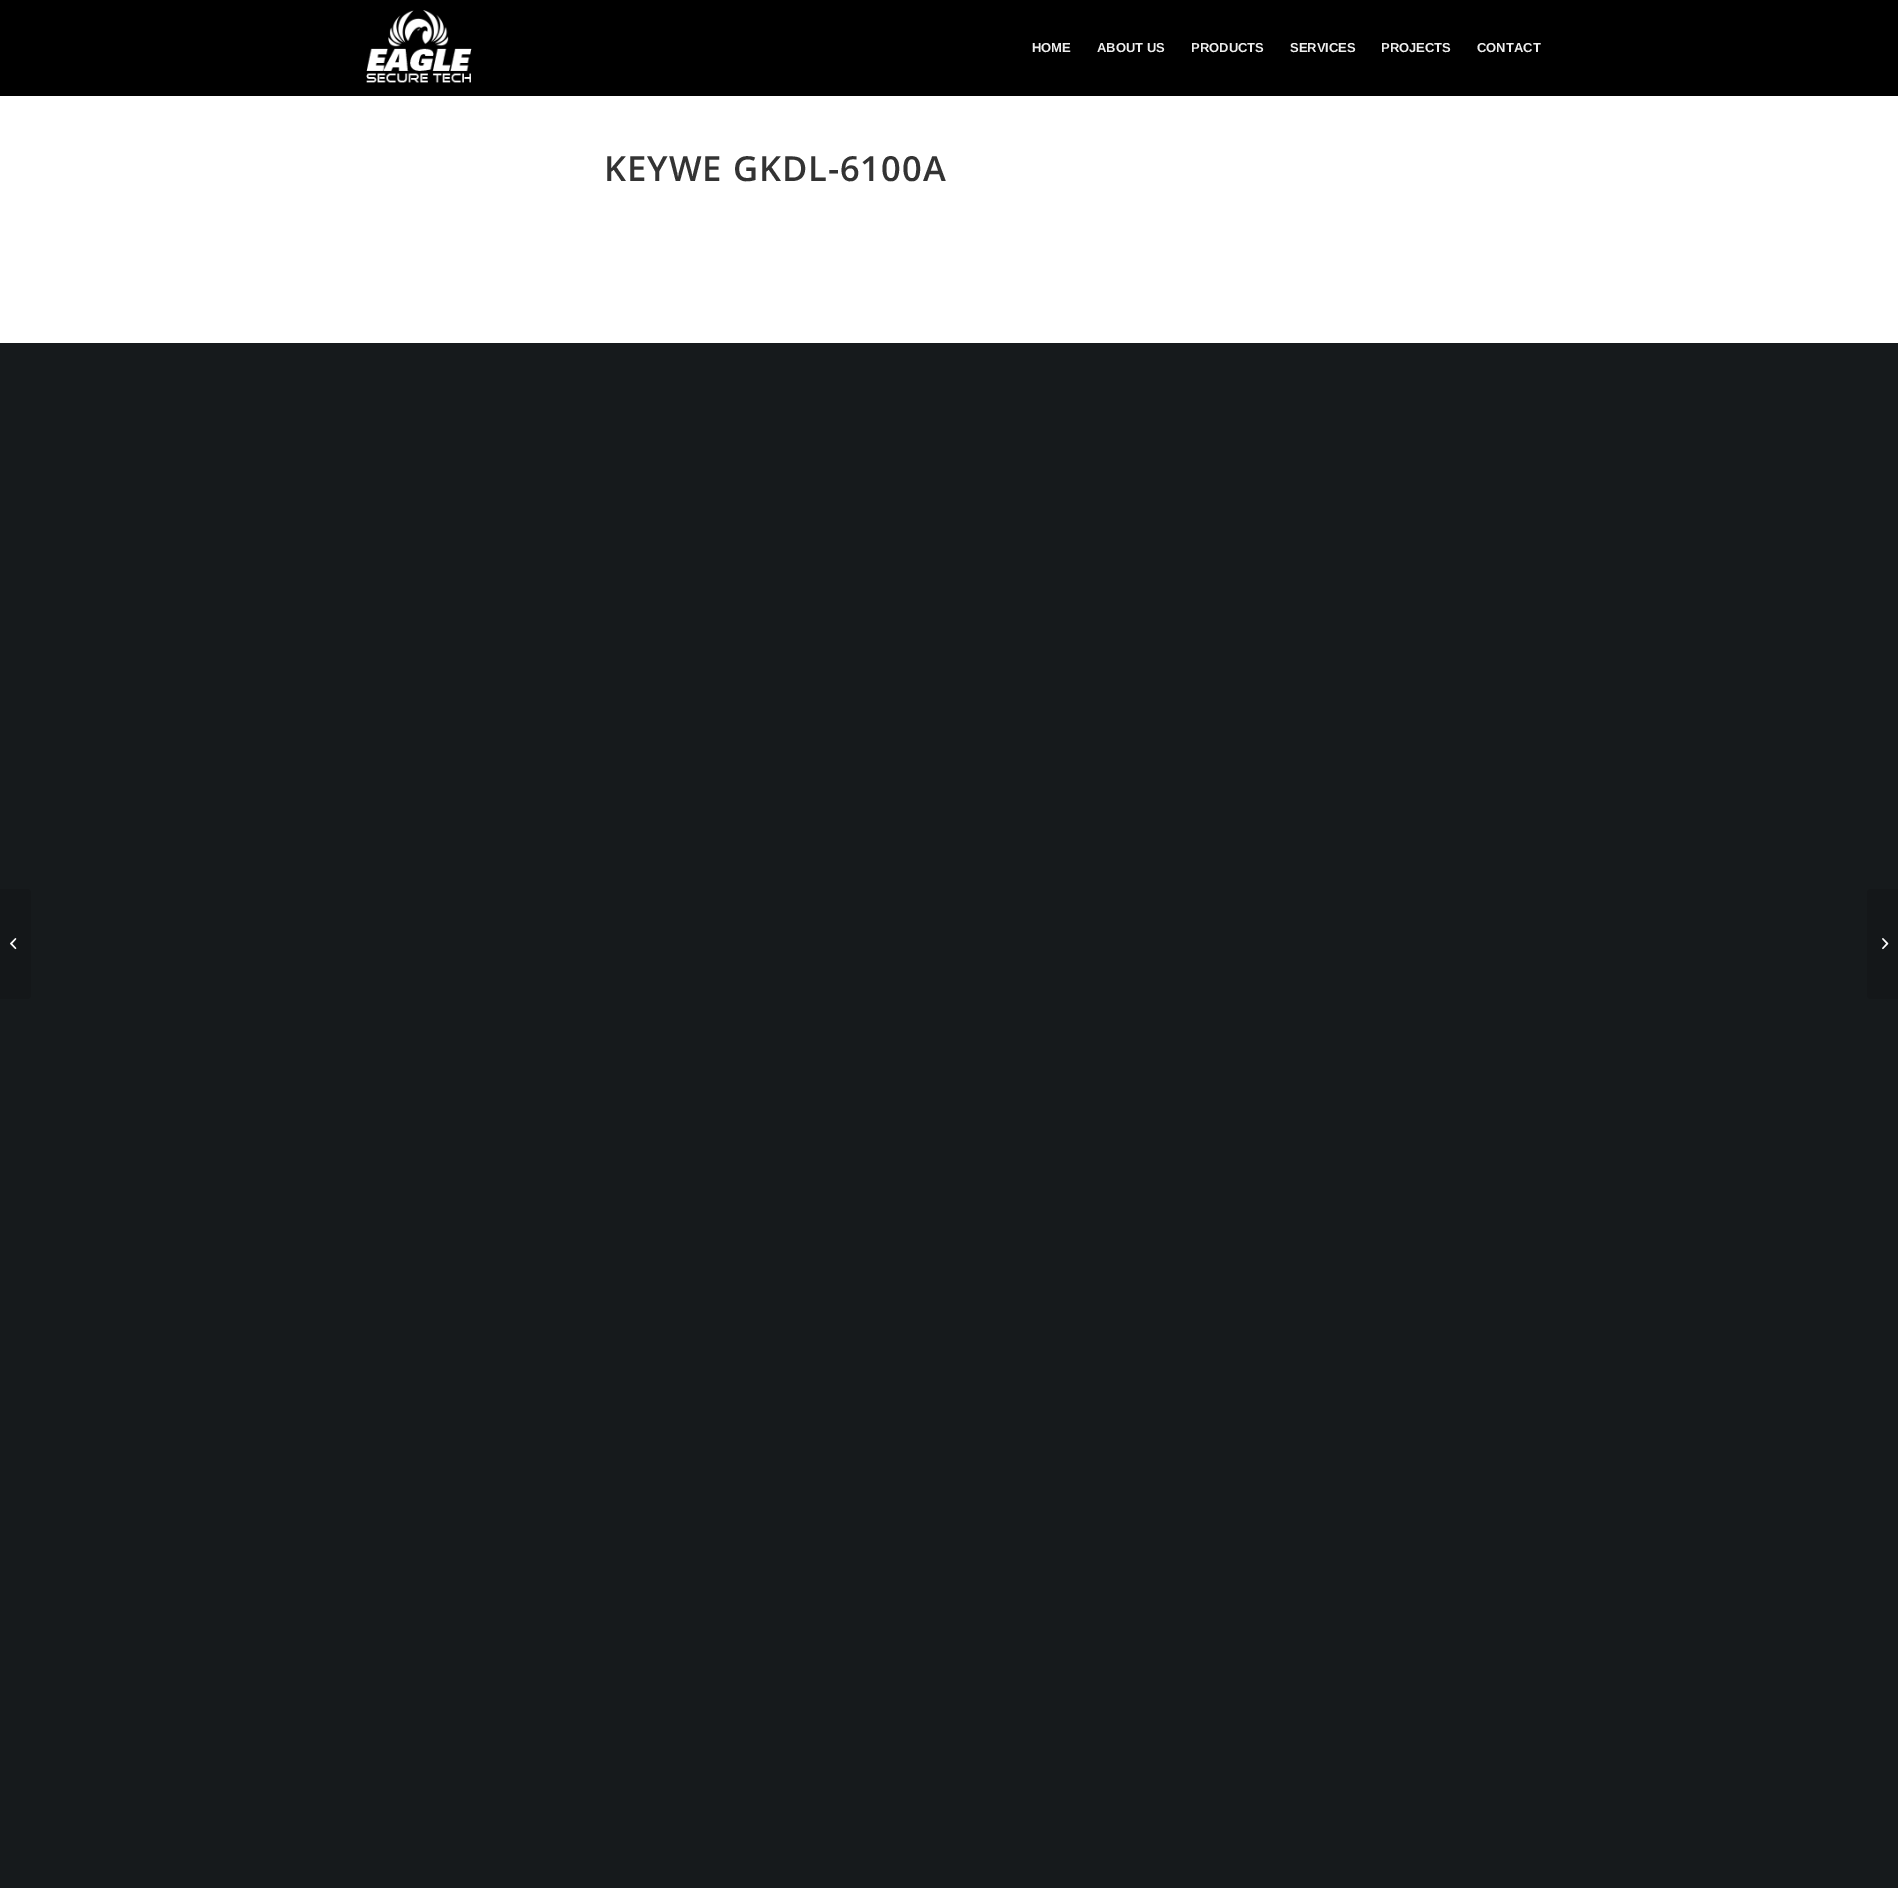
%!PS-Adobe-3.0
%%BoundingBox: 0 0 1898 1888
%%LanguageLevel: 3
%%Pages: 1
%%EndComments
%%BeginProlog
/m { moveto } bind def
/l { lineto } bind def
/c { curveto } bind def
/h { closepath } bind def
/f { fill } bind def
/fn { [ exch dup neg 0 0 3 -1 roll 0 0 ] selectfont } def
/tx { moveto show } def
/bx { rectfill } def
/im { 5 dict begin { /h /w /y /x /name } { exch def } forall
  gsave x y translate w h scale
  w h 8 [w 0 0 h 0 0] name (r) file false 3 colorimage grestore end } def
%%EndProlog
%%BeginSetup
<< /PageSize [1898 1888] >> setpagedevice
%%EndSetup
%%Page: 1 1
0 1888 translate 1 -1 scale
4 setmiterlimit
0.086 0.102 0.11 setrgbcolor
0 0 1898 1888 bx
0 setgray
0 0 1898 96 bx
(image0.raw) 366 10 106 73 im
/LiberationSans-Bold 13 fn
0.933 setgray
(HOME) 1032 52 tx
(ABOUT US) 1097 52 tx
(PRODUCTS) 1191 52 tx
(SERVICES) 1290 52 tx
(PROJECTS) 1381 52 tx
(CONTACT) 1477 52 tx
1 setgray
0 96 1898 247 bx
/OpenSans-SemiBold 34.5 fn
0.2 setgray
604 181 m 1 0 (KEYWE GKDL-6100A) ashow
0.078 0.09 0.098 setrgbcolor
0 889 m 27 889 l 29 889 31 891 31 893 c 31 995 l 31 997 29 999 27 999 c 0 999 l h f
(image1.raw) 10 938 7 12 im
1871 889 m 1898 889 l 1898 999 l 1871 999 l 1869 999 1867 997 1867 995 c 1867 893 l 1867 891 1869 889 1871 889 c h f
(image2.raw) 1882 938 7 12 im
showpage
%%EOF
